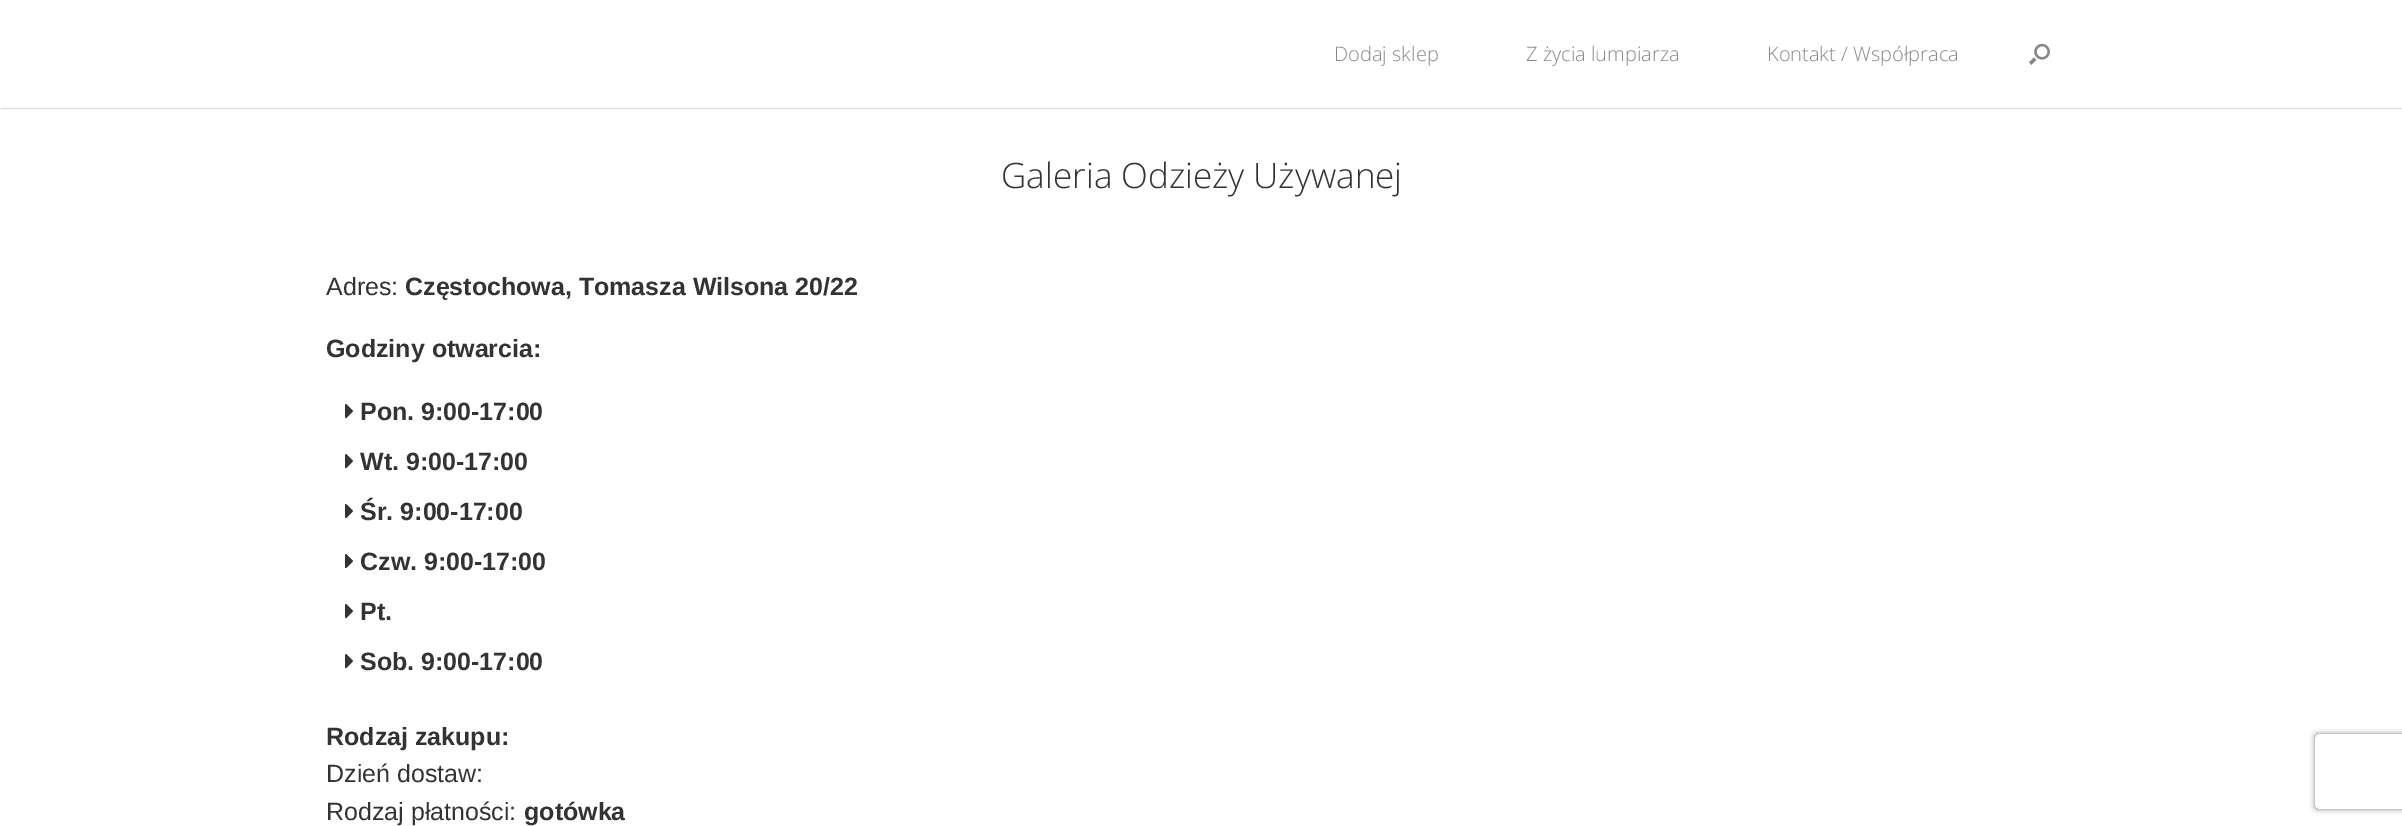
%!PS-Adobe-3.0
%%BoundingBox: 0 0 2402 826
%%LanguageLevel: 3
%%Pages: 1
%%EndComments
%%BeginProlog
/m { moveto } bind def
/l { lineto } bind def
/c { curveto } bind def
/h { closepath } bind def
/q { gsave } bind def
/Q { grestore } bind def
/fn { [ exch dup neg 0 0 3 -1 roll 0 0 ] selectfont } def
/tx { moveto show } def
/bx { rectfill } def
/al { dup .setfillconstantalpha .setstrokeconstantalpha } def
/rr { 5 dict begin { /r /h /w /y /x } { exch def } forall
  x r add y moveto x w add y 2 copy h add r arct x w add y h add x 1 index r arct
  x y h add x y r arct x y 2 copy exch w add exch r arct closepath end } def
/sh { 12 dict begin { /a /b /q /h /w /y /x } { exch def } forall gsave /was 0 def
  9 -2 -9 { dup b mul 4 div /e exch def 1 sub .425 mul 2.718 exch exp 1 add a .99 .min exch div /now exch def
    1 1 now sub 1 was sub div sub al /was now def
    w h .min e 2 mul add 0 gt { x e sub y e sub w e 2 mul add h e 2 mul add
      q e add b .6 mul add w h .min 2 div e add .min 0 .max rr fill } if } for grestore end } def
/im { 5 dict begin { /h /w /y /x /name } { exch def } forall
  gsave x y translate w h scale
  w h 8 [w 0 0 h 0 0] name (r) file false 3 colorimage grestore end } def
%%EndProlog
%%BeginSetup
<< /PageSize [2402 826] /PageUsesTransparency true >> setpagedevice
%%EndSetup
%%Page: 1 1
0 .pushpdf14devicefilter
0 826 translate 1 -1 scale
4 setmiterlimit
1 setgray
0 0 2402 826 bx
0.859 setgray
1 1 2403 108 0 0.5 1 sh
1 setgray
0 0 2402 108 bx
/OpenSans-Light 20 fn
0.533 setgray
(Dodaj sklep) 1334 61 tx
(Z życia lumpiarza) 1526 61 tx
(Kontakt / Współpraca) 1767 61 tx
(image0.raw) 2029 43 21 22 im
/OpenSans-Light 35 fn
0.2 setgray
(Galeria Odzieży Używanej) 1001 188 tx
/LiberationSans-Regular 25 fn
(Adres:) 326 295 tx
/LiberationSans-Bold 25 fn
(Częstochowa, Tomasza Wilsona 20/22) 405 295 tx
(Godziny otwarcia:) 326 357 tx
(image1.raw) 345 404 8 15 im
(Pon. 9:00-17:00) 360 420 tx
(image1.raw) 345 454 8 15 im
(Wt. 9:00-17:00) 360 470 tx
(image1.raw) 345 504 8 15 im
(Śr. 9:00-17:00) 360 520 tx
(image1.raw) 345 554 8 15 im
(Czw. 9:00-17:00) 360 570 tx
(image1.raw) 345 604 8 15 im
(Pt.) 360 620 tx
(image1.raw) 345 654 8 15 im
(Sob. 9:00-17:00) 360 670 tx
(Rodzaj zakupu:) 326 745 tx
/LiberationSans-Regular 25 fn
(Dzień dostaw:) 326 782 tx
(Rodzaj płatności:) 326 820 tx
/LiberationSans-Bold 25 fn
(gotówka) 524 820 tx
q
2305 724 m 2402 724 l 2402 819 l 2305 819 l h 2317.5 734 m 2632.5 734 l 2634 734 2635 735 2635 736.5 c 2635 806.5 l 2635 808 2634 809 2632.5 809 c 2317.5 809 l 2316 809 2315 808 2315 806.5 c 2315 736.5 l 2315 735 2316 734 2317.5 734 c h eoclip newpath
0.502 setgray
2315 734 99 75 2.5 3 1 sh
Q
.poppdf14devicefilter showpage
%%EOF
